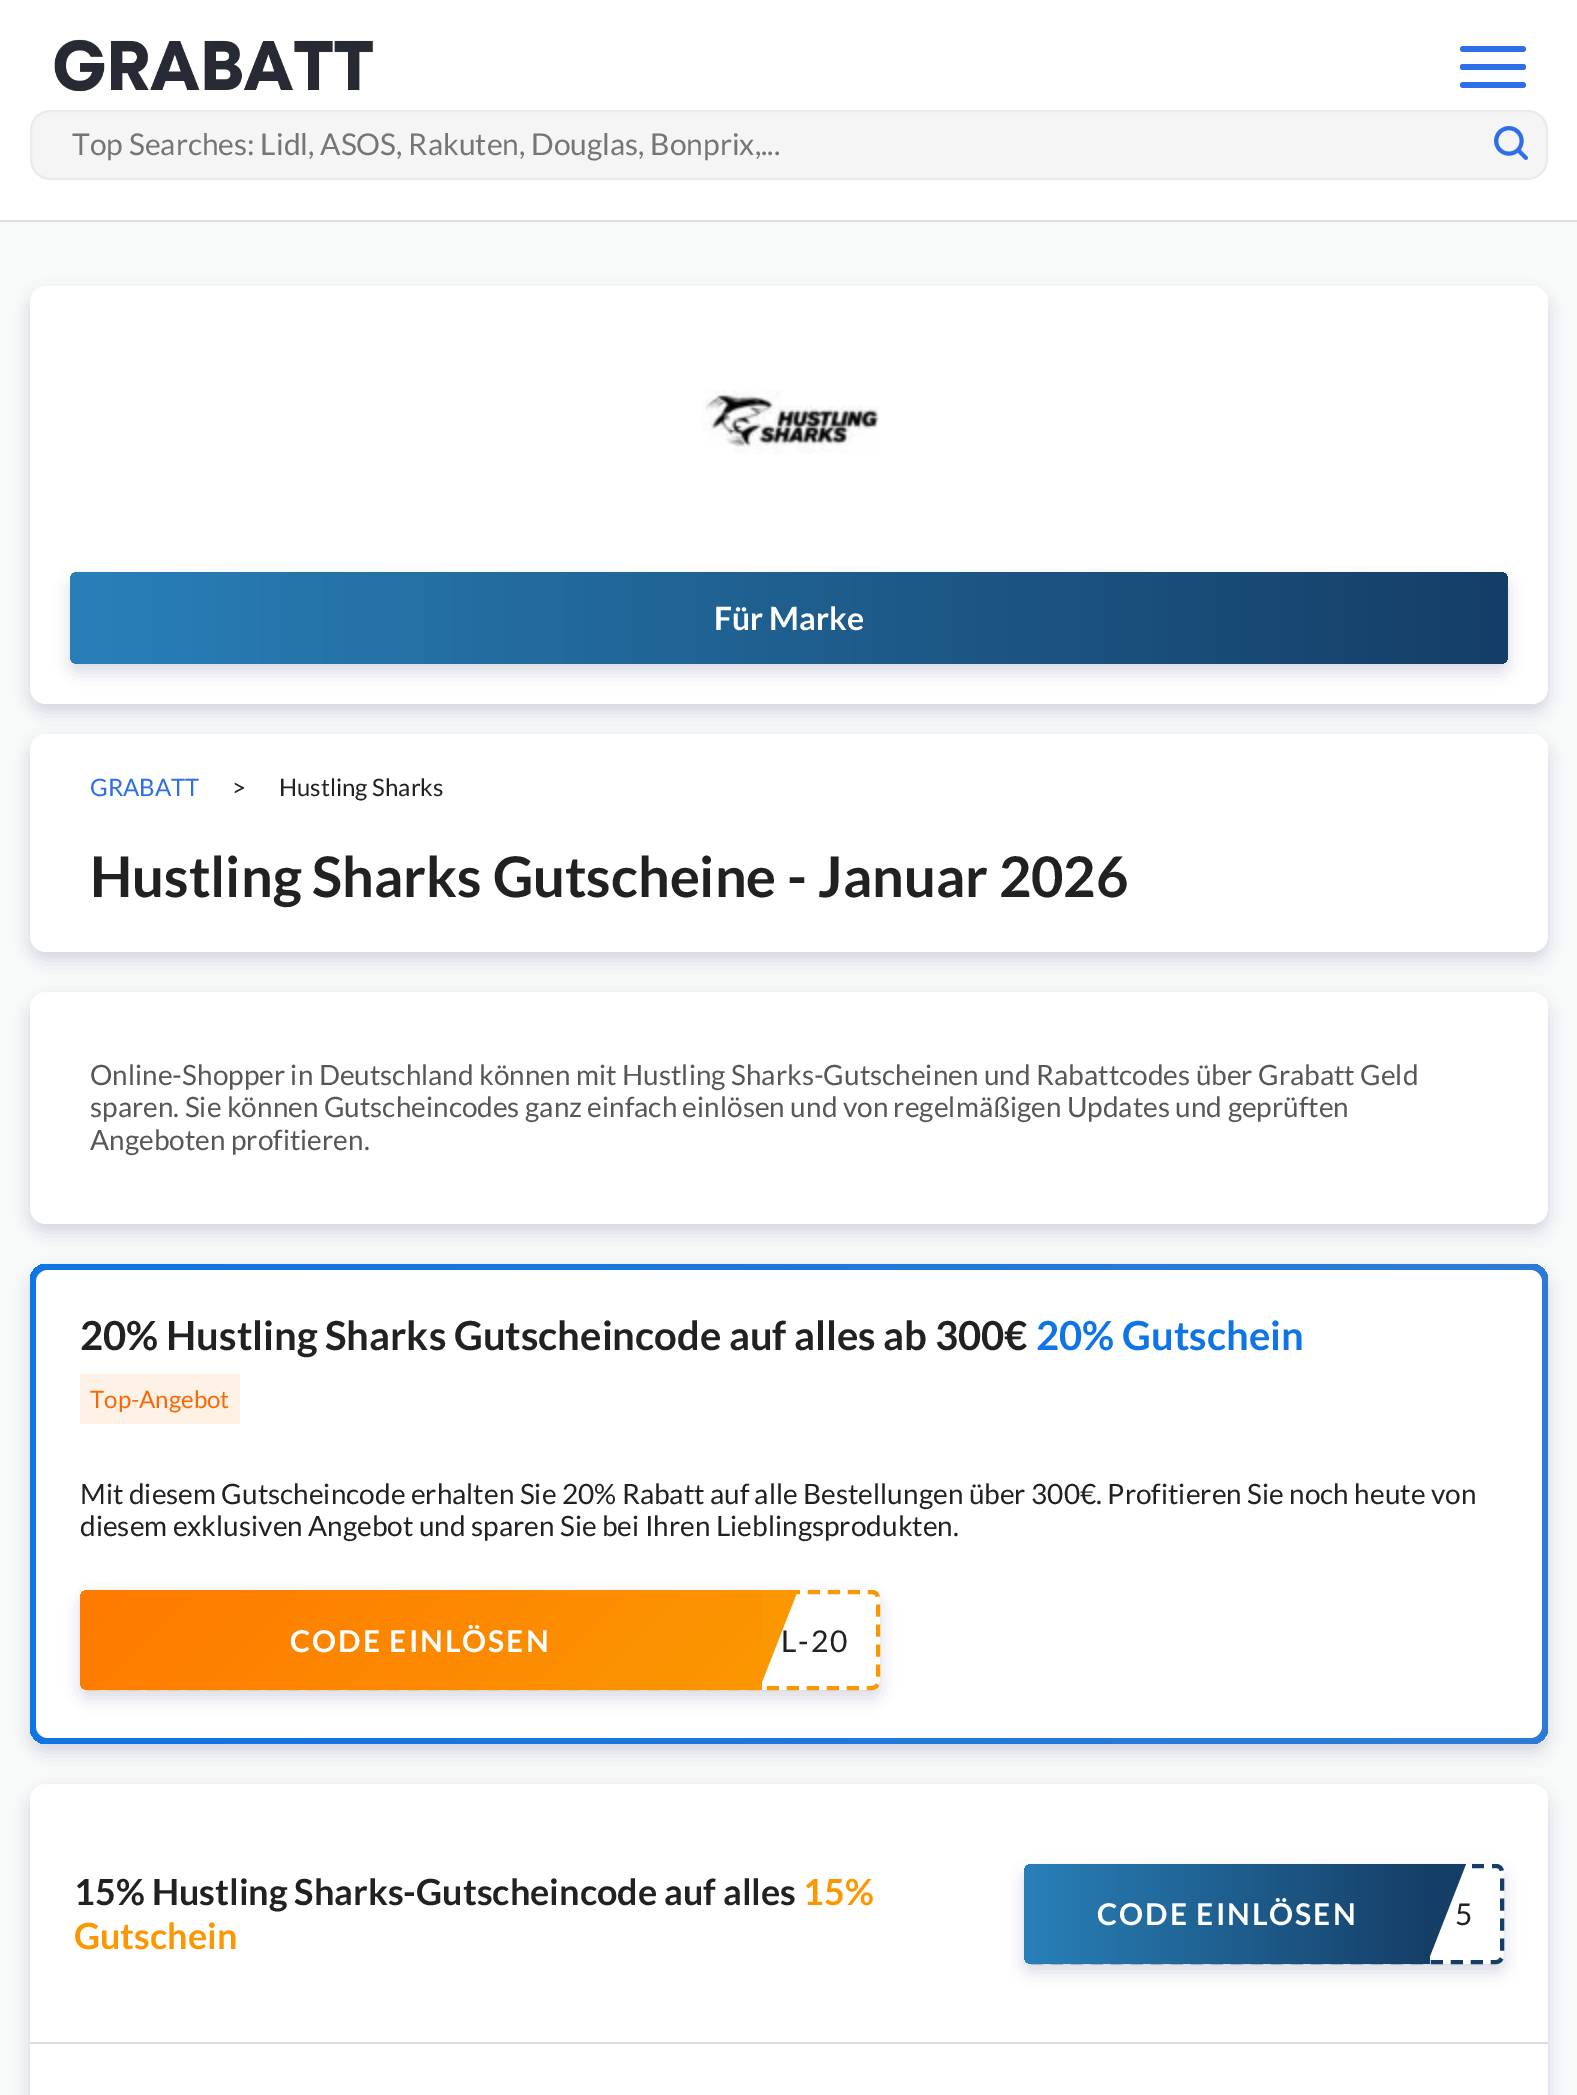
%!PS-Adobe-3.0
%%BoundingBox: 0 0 1577 2095
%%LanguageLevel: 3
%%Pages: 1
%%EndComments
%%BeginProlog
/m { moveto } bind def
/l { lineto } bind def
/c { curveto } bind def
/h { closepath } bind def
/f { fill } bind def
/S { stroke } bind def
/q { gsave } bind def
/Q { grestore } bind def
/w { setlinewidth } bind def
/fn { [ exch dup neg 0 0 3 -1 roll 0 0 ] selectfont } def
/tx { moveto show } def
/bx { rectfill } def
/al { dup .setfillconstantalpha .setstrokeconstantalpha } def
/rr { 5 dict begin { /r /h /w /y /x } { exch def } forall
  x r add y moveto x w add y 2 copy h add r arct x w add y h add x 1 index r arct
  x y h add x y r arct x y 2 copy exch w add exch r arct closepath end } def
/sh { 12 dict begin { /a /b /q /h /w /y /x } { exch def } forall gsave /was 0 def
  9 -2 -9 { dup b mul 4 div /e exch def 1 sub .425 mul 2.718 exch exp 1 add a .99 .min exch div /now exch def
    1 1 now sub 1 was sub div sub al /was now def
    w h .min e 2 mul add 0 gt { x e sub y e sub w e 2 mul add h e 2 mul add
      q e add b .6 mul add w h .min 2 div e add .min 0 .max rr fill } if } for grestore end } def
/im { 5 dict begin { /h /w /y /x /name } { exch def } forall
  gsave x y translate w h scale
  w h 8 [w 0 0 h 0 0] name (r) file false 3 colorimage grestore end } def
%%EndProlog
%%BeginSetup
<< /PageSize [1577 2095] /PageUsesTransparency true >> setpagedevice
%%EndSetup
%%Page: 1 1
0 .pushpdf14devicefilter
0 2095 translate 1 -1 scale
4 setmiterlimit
0.973 0.976 0.976 setrgbcolor
0 0 1577 2095 bx
1 setgray
0 0 1577 220 bx
0.878 setgray
0 220 1577 2 bx
(image0.raw) 54 39 320 53 im
0.18 0.431 0.91 setrgbcolor
1523 64 m 1463 64 l 1461 64 1460 65 1460 67 c 1460 69 1461 70 1463 70 c 1523 70 l 1525 70 1526 69 1526 67 c 1526 65 1525 64 1523 64 c h f
1460 46 66 6 3 rr f
1460 82 66 6 3 rr f
0.961 setgray
31 111 1516 68 19 rr q f Q
0.922 setgray
2 w
S
/Lato-Regular 30 fn
0.459 setgray
(Top Searches: Lidl, ASOS, Rakuten, Douglas, Bonprix,...) 72 155 tx
(image1.raw) 1494 126 34 34 im
0.039 0.086 0.275 setrgbcolor
30 294 1518 418 16 8 0.15 sh
1 setgray
30 286 1518 418 16 rr f
(image2.raw) 702 390 177 64 im
0.039 0.086 0.275 setrgbcolor
70 580 1438 92 8 8 0.15 sh
q 70 572 1438 92 8 rr clip newpath
<< /ShadingType 2 /ColorSpace /DeviceRGB /Coords [70 618 1508 618] /Extend [true true] /Function << /FunctionType 2 /Domain [0 1] /C0 [0.161 0.502 0.725] /C1 [0.082 0.243 0.4] /N 1 >> >> shfill Q
/Lato-Bold 32 fn
1 setgray
(Für Marke) 714 630 tx
0.039 0.086 0.275 setrgbcolor
30 742 1518 218 16 8 0.15 sh
1 setgray
30 734 1518 218 16 rr f
/Lato-Regular 24 fn
0.18 0.431 0.91 setrgbcolor
(GRABATT) 90 796 tx
0.129 setgray
(>) 232 796 tx
(Hustling Sharks) 279 796 tx
/Lato-Bold 56 fn
(Hustling Sharks Gutscheine - Januar 2026) 90 897 tx
0.039 0.086 0.275 setrgbcolor
30 1000 1518 232 16 8 0.15 sh
1 setgray
30 992 1518 232 16 rr f
/Lato-Regular 28 fn
0.341 setgray
(Online-Shopper in Deutschland können mit Hustling Sharks-Gutscheinen und Rabattcodes über Grabatt Geld) 90 1085 tx
(sparen. Sie können Gutscheincodes ganz einfach einlösen und von regelmäßigen Updates und geprüften) 90 1117 tx
(Angeboten profitieren.) 90 1150 tx
0.039 0.086 0.275 setrgbcolor
30 1272 1518 480 16 8 0.15 sh
q 30 1264 1518 480 16 rr clip newpath
<< /ShadingType 2 /ColorSpace /DeviceRGB /Coords [30 1504 1548 1504] /Extend [true true] /Function << /FunctionType 2 /Domain [0 1] /C0 [0.059 0.455 0.898] /C1 [0.173 0.486 0.835] /N 1 >> >> shfill Q
1 setgray
36 1270 1506 468 12 rr f
/Lato-Bold 40 fn
0.129 setgray
(20% Hustling Sharks Gutscheincode auf alles ab 300€) 80 1350 tx
0.059 0.455 0.898 setrgbcolor
(20% Gutschein) 1036 1350 tx
0.996 0.945 0.898 setrgbcolor
80 1374 160 50 bx
/Lato-Regular 24 fn
0.98 0.408 0.02 setrgbcolor
(Top-Angebot) 90 1408 tx
/Lato-Regular 28 fn
0.129 setgray
(Mit diesem Gutscheincode erhalten Sie 20% Rabatt auf alle Bestellungen über 300€. Profitieren Sie noch heute von) 80 1504 tx
(diesem exklusiven Angebot und sparen Sie bei Ihren Lieblingsprodukten.) 80 1536 tx
q
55 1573 m 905 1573 l 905 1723 l 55 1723 l h 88 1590 m 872 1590 l 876.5 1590 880 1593.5 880 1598 c 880 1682 l 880 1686.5 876.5 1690 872 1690 c 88 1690 l 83.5 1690 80 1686.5 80 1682 c 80 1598 l 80 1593.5 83.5 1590 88 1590 c h eoclip newpath
0.039 0.086 0.275 setrgbcolor
80 1598 800 100 8 8 0.15 sh
Q
0.984 0.592 0 setrgbcolor
4 w
[12 8] 0 setdash
88 1592 m 872 1592 l 875.5 1592 878 1594.5 878 1598 c 878 1682 l 878 1685.5 875.5 1688 872 1688 c 88 1688 l 84.5 1688 82 1685.5 82 1682 c 82 1598 l 82 1594.5 84.5 1592 88 1592 c h S
q 88 1590 m 762 1590 l 762 1690 l 88 1690 l 83.5 1690 80 1686.5 80 1682 c 80 1598 l 80 1593.5 83.5 1590 88 1590 c h clip newpath
<< /ShadingType 2 /ColorSpace /DeviceRGB /Coords [617 1836 225 1445] /Extend [true true] /Function << /FunctionType 2 /Domain [0 1] /C0 [0.984 0.592 0] /C1 [1 0.478 0] /N 1 >> >> shfill Q
/Lato-Bold 30 fn
1 setgray
290 1652 m 2 0 (CODE EINLÖSEN) ashow
/Lato-Regular 30 fn
0.129 setgray
781 1652 m 2 0 (L-20) ashow
0.984 0.592 0 setrgbcolor
762 1682 m 762 1590 l 798 1590 l h f
0.039 0.086 0.275 setrgbcolor
30 1792 1518 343 16 8 0.15 sh
1 setgray
46 1784 m 1532 1784 l 1541 1784 1548 1791 1548 1800 c 1548 2044 l 30 2044 l 30 1800 l 30 1791 37 1784 46 1784 c h f
0.867 setgray
30 2042 1518 2 bx
/Lato-Bold 36 fn
0.129 setgray
(15% Hustling Sharks-Gutscheincode auf alles) 74 1905 tx
0.984 0.592 0 setrgbcolor
(15%) 803 1905 tx
(Gutschein) 74 1949 tx
q
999 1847 m 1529 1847 l 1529 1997 l 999 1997 l h 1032 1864 m 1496 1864 l 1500.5 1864 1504 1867.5 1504 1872 c 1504 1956 l 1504 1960.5 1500.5 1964 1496 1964 c 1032 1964 l 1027.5 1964 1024 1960.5 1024 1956 c 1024 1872 l 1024 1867.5 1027.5 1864 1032 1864 c h eoclip newpath
0.039 0.086 0.275 setrgbcolor
1024 1872 480 100 8 8 0.15 sh
Q
0.082 0.243 0.4 setrgbcolor
1032 1866 m 1496 1866 l 1499.5 1866 1502 1868.5 1502 1872 c 1502 1956 l 1502 1959.5 1499.5 1962 1496 1962 c 1032 1962 l 1028.5 1962 1026 1959.5 1026 1956 c 1026 1872 l 1026 1868.5 1028.5 1866 1032 1866 c h S
q 1032 1864 m 1430 1864 l 1430 1964 l 1032 1964 l 1027.5 1964 1024 1960.5 1024 1956 c 1024 1872 l 1024 1867.5 1027.5 1864 1032 1864 c h clip newpath
<< /ShadingType 2 /ColorSpace /DeviceRGB /Coords [1024 1914 1430 1914] /Extend [true true] /Function << /FunctionType 2 /Domain [0 1] /C0 [0.161 0.502 0.725] /C1 [0.082 0.243 0.4] /N 1 >> >> shfill Q
/Lato-Bold 30 fn
1 setgray
1097 1925 m 2 0 (CODE EINLÖSEN) ashow
/Lato-Regular 30 fn
0.129 setgray
1455 1925 m 2 0 (5) ashow
0.082 0.243 0.4 setrgbcolor
1430 1956 m 1430 1864 l 1466 1864 l h f
1 setgray
30 2044 1518 51 bx
.poppdf14devicefilter showpage
%%EOF
